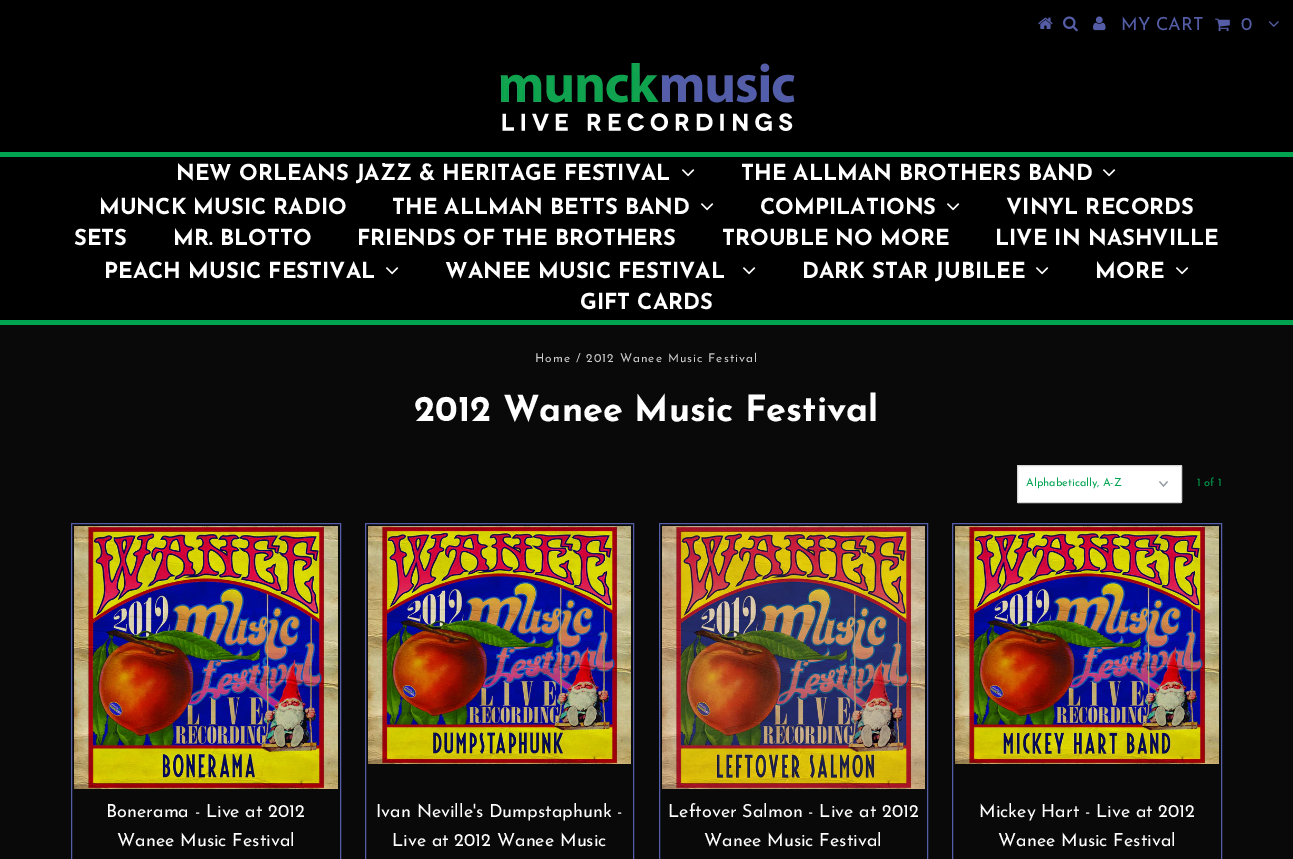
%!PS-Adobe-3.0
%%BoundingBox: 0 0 1293 859
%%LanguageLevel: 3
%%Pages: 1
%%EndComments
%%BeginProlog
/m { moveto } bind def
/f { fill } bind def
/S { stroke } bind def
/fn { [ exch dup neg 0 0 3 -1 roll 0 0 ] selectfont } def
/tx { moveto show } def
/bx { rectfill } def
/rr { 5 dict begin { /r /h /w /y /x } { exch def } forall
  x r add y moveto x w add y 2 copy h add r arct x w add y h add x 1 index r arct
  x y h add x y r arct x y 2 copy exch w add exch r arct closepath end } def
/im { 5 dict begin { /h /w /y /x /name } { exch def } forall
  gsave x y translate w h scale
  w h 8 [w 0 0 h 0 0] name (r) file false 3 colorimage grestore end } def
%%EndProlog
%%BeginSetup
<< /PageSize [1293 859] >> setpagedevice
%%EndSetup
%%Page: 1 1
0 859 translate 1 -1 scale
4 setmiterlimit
0.035 setgray
0 0 1293 859 bx
0 setgray
0 0 1293 320 bx
(image0.raw) 1038 17 15 12 im
(image1.raw) 1063 16 15 16 im
(image2.raw) 1093 16 13 15 im
/JosefinSans-Regular 18 fn
0.329 0.365 0.651 setrgbcolor
(MY CART) 1121 30 tx
(image3.raw) 1215 18 15 14 im
(0) 1241 30 tx
(image4.raw) 1268 21 11 6 im
(image5.raw) 500 63 295 68 im
0 0.639 0.314 setrgbcolor
0 152 1293 5 bx
0 320 1293 5 bx
/JosefinSans-Bold 22 fn
1 setgray
(NEW ORLEANS JAZZ & HERITAGE FESTIVAL) 176 180 tx
(image6.raw) 682 169 13 8 im
(THE ALLMAN BROTHERS BAND) 741 180 tx
(image6.raw) 1103 169 13 8 im
(MUNCK MUSIC RADIO) 99 214 tx
(THE ALLMAN BETTS BAND) 392 214 tx
(image6.raw) 701 203 13 8 im
(COMPILATIONS) 760 214 tx
(image6.raw) 947 203 13 8 im
(VINYL RECORDS) 1006 214 tx
(SETS) 74 245 tx
(MR. BLOTTO) 173 245 tx
(FRIENDS OF THE BROTHERS) 357 245 tx
(TROUBLE NO MORE) 722 245 tx
(LIVE IN NASHVILLE) 995 245 tx
(PEACH MUSIC FESTIVAL) 104 278 tx
(image6.raw) 386 267 13 8 im
(WANEE MUSIC FESTIVAL) 445 278 tx
(image6.raw) 743 267 13 8 im
(DARK STAR JUBILEE) 802 278 tx
(image6.raw) 1036 267 13 8 im
(MORE) 1095 278 tx
(image6.raw) 1176 267 13 8 im
(GIFT CARDS) 580 309 tx
/JosefinSans-Regular 12 fn
0.8 setgray
535 362 m 1 0 (Home / 2012 Wanee Music Festival) ashow
/JosefinSans-Bold 36 fn
1 setgray
(2012 Wanee Music Festival) 414 421 tx
1017 465 165 38 1 rr f
(image7.raw) 1159 481 9 6 im
0.835 setgray
1017.5 465.5 164 37 0.5 rr S
/JosefinSans-Regular 11 fn
0 0.639 0.314 setrgbcolor
(Alphabetically, A-Z) 1026 486 tx
(1 of 1) 1197 486 tx
0.329 0.365 0.651 setrgbcolor
71.5 523.5 269 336 rectstroke
(image8.raw) 74 526 264 263 im
/JosefinSans-Regular 18 fn
1 setgray
(Bonerama - Live at 2012) 106 817 tx
(Wanee Music Festival) 117 846 tx
0.329 0.365 0.651 setrgbcolor
365.5 523.5 268 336 rectstroke
(image9.raw) 368 526 263 238 im
1 setgray
(Ivan Neville's Dumpstaphunk -) 376 817 tx
(Live at 2012 Wanee Music) 392 846 tx
0.329 0.365 0.651 setrgbcolor
659.5 523.5 268 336 rectstroke
(image10.raw) 662 526 263 263 im
1 setgray
(Leftover Salmon - Live at 2012) 668 817 tx
(Wanee Music Festival) 704 846 tx
0.329 0.365 0.651 setrgbcolor
952.5 523.5 269 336 rectstroke
(image11.raw) 955 526 264 238 im
1 setgray
(Mickey Hart - Live at 2012) 979 817 tx
(Wanee Music Festival) 998 846 tx
showpage
%%EOF
